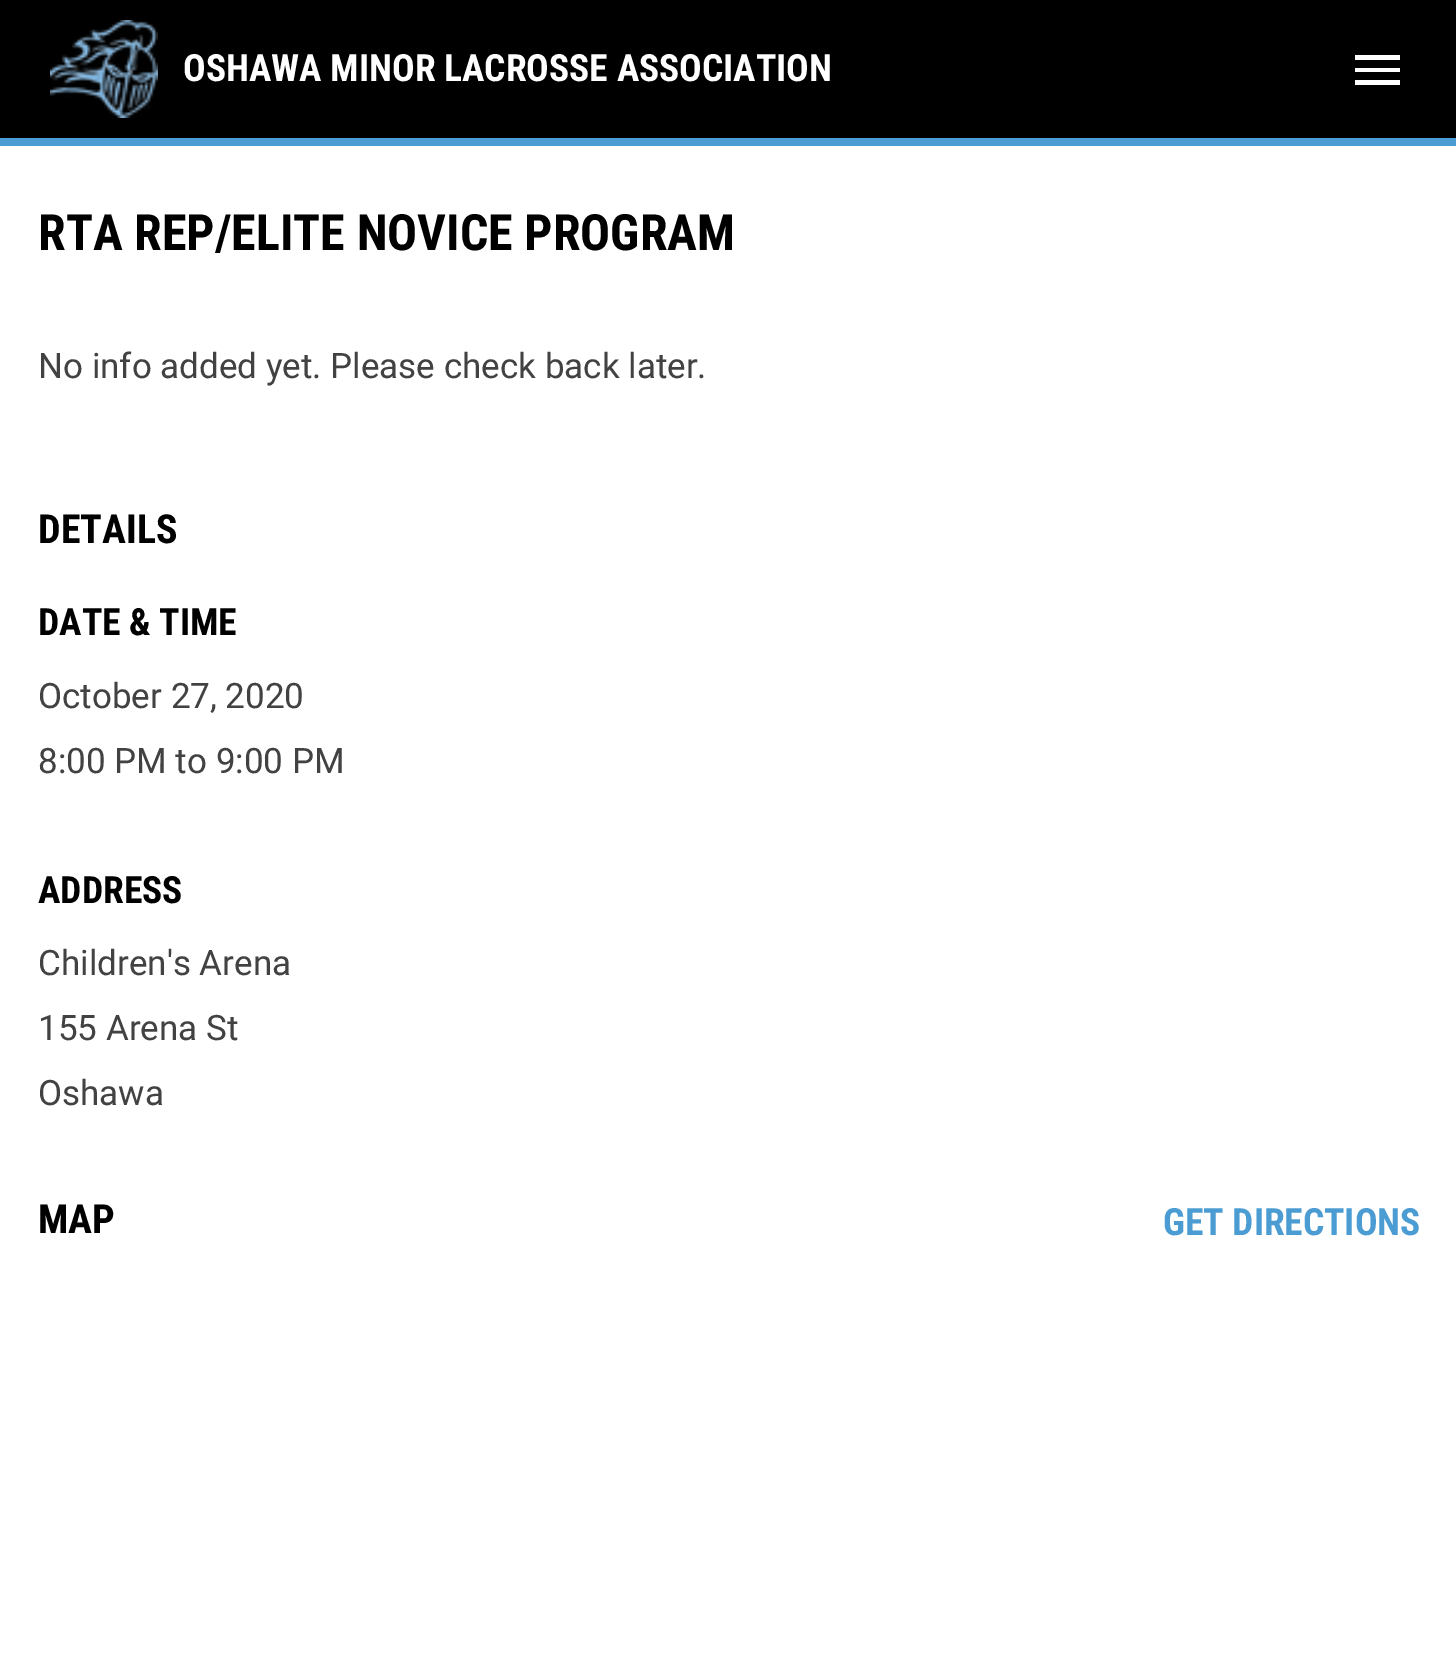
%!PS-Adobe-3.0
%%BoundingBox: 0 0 1456 1676
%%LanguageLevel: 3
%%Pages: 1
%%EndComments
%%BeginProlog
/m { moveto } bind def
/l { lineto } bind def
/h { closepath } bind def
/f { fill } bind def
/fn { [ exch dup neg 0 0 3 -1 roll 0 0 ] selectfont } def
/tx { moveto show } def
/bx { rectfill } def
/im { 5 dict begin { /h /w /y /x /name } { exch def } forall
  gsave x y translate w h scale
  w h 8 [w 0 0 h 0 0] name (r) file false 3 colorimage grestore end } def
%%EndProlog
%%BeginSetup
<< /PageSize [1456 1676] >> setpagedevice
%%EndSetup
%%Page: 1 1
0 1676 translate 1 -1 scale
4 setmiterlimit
1 setgray
0 0 1456 1676 bx
0 setgray
0 0 1456 138 bx
(image0.raw) 50 20 108 98 im
/RobotoCondensed-Bold 37.5 fn
1 setgray
(OSHAWA MINOR LACROSSE ASSOCIATION) 183 81 tx
1355 55 m 1400 55 l 1400 60 l 1355 60 l h 1355 72 m 1355 68 l 1400 68 l 1400 72 l h 1355 85 m 1355 80 l 1400 80 l 1400 85 l h f
0.294 0.612 0.827 setrgbcolor
0 138 1456 8 bx
/RobotoCondensed-Bold 50 fn
0 setgray
(RTA REP/ELITE NOVICE PROGRAM) 38 250 tx
/Roboto-Regular 35 fn
0.259 setgray
(No info added yet. Please check back later.) 38 378 tx
/RobotoCondensed-Bold 40 fn
0 setgray
(DETAILS) 38 543 tx
/RobotoCondensed-Bold 37.5 fn
(DATE & TIME) 38 635 tx
/Roboto-Regular 35 fn
0.259 setgray
(October 27, 2020) 38 708 tx
(8:00 PM to 9:00 PM) 38 773 tx
/RobotoCondensed-Bold 37.5 fn
0 setgray
(ADDRESS) 38 903 tx
/Roboto-Regular 35 fn
0.259 setgray
(Children's Arena) 38 975 tx
(155 Arena St) 38 1040 tx
(Oshawa) 38 1105 tx
/RobotoCondensed-Bold 40 fn
0 setgray
(MAP) 38 1233 tx
/RobotoCondensed-Bold 37.5 fn
0.294 0.612 0.827 setrgbcolor
(GET DIRECTIONS) 1163 1235 tx
showpage
%%EOF
